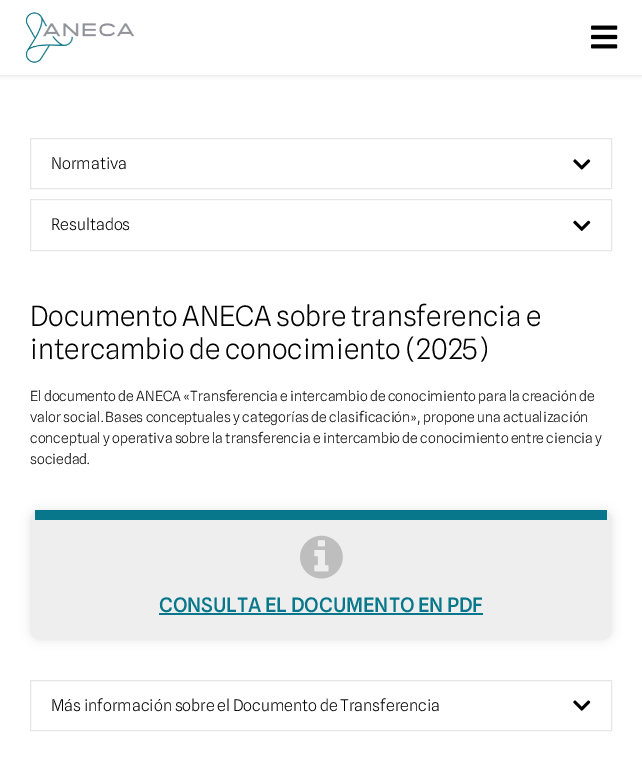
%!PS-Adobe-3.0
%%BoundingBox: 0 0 642 773
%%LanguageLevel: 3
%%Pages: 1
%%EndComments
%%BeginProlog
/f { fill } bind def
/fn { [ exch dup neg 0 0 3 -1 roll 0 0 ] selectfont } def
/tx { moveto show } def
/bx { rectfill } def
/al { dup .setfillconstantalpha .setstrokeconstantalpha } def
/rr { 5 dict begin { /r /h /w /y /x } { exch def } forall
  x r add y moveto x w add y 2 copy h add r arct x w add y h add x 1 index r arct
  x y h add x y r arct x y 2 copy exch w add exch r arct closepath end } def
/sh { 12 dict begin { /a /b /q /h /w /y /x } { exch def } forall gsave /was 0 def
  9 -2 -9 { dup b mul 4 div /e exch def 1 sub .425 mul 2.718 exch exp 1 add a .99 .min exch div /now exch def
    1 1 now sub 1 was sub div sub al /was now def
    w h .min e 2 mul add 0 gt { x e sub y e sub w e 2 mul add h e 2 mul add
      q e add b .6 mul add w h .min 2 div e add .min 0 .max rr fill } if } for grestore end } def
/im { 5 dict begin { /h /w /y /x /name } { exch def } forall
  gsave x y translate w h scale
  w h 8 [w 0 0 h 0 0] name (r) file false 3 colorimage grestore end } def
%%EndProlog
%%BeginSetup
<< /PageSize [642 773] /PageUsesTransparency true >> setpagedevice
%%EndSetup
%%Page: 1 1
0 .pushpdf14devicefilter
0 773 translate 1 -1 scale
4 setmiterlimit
1 setgray
0 0 642 773 bx
0 setgray
0 0 642 75 0 2.5 0.15 sh
1 setgray
0 0 642 75 bx
(image0.raw) 25 12 110 51 im
(image1.raw) 591 25 27 24 im
0.902 setgray
30.5 138.5 581 50 rectstroke
/SplineSans-Light 16 fn
0 setgray
(Normativa) 51 169 tx
(image2.raw) 573 159 18 11 im
0.902 setgray
30.5 199.5 581 51 rectstroke
0 setgray
(Resultados) 51 230 tx
(image3.raw) 573 220 18 11 im
/SplineSans-Light 28 fn
(Documento ANECA sobre transferencia e) 30 326 tx
(intercambio de conocimiento \(2025\)) 30 359 tx
/SplineSans-Light 14 fn
(El documento de ANECA «Transferencia e intercambio de conocimiento para la creación de) 30 401 tx
(valor social. Bases conceptuales y categorías de clasificación», propone una actualización) 30 422 tx
(conceptual y operativa sobre la transferencia e intercambio de conocimiento entre ciencia y) 30 443 tx
(sociedad.) 30 464 tx
30 510 582 130 10 5 0.1 sh
0.933 setgray
30 510 582 130 10 rr f
0.031 0.467 0.545 setrgbcolor
35 510 572 10 bx
(image4.raw) 300 535 43 44 im
/SplineSans-Medium 20 fn
(CONSULTA EL DOCUMENTO EN PDF) 159 612 tx
159 613 324 2 bx
0.902 setgray
30.5 680.5 581 50 rectstroke
/SplineSans-Light 16 fn
0 setgray
(Más información sobre el Documento de Transferencia) 51 711 tx
(image5.raw) 573 700 18 11 im
.poppdf14devicefilter showpage
%%EOF
